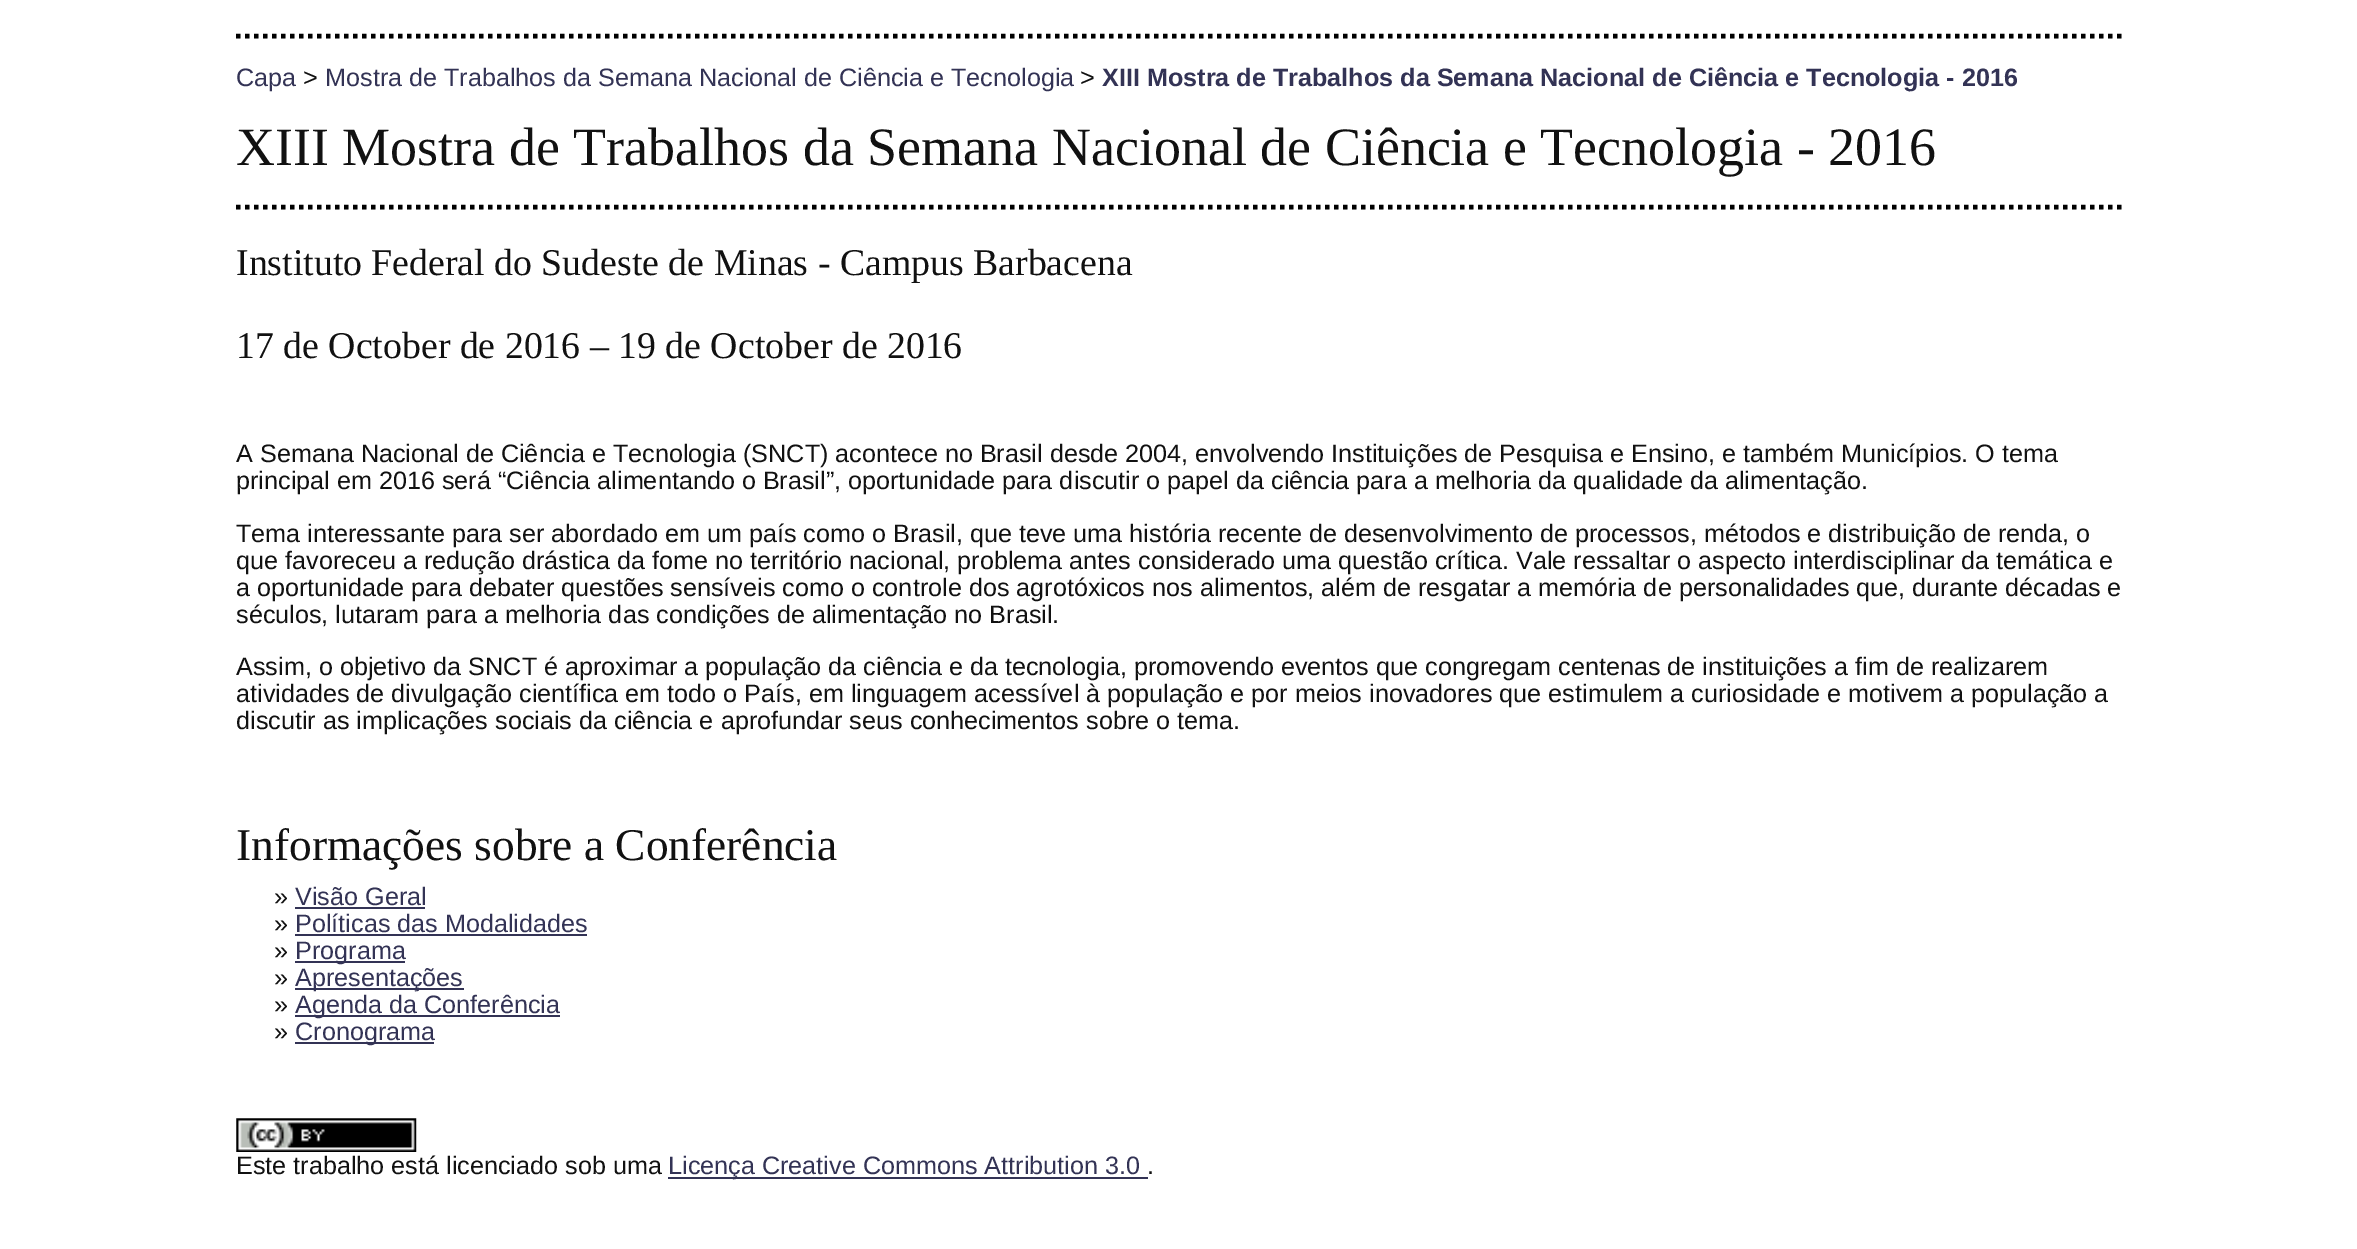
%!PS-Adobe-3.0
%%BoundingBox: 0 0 2357 1249
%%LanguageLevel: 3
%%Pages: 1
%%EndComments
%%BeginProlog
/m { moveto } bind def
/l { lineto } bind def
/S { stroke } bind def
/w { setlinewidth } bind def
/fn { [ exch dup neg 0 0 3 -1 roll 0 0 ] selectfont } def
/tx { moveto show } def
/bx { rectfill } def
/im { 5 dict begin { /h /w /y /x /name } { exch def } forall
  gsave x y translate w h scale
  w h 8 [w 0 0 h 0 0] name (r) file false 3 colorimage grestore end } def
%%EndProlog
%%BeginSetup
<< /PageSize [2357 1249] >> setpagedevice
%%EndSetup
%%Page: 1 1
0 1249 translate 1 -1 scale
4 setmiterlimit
1 setgray
0 0 2357 1249 bx
0 setgray
4.5 w
[4.5 4.5] 0 setdash
236 36 m 2122 36 l S
/LiberationSans-Regular 25.2 fn
0.2 0.2 0.333 setrgbcolor
(Capa) 236 86 tx
0.067 setgray
(>) 303 86 tx
0.2 0.2 0.333 setrgbcolor
(Mostra de Trabalhos da Semana Nacional de Ciência e Tecnologia) 325 86 tx
0.067 setgray
(>) 1080 86 tx
/LiberationSans-Bold 25.2 fn
0.2 0.2 0.333 setrgbcolor
(XIII Mostra de Trabalhos da Semana Nacional de Ciência e Tecnologia - 2016) 1102 86 tx
/LiberationSerif-Regular 54 fn
0.067 setgray
(XIII Mostra de Trabalhos da Semana Nacional de Ciência e Tecnologia - 2016) 236 165 tx
0 setgray
236 207 m 2122 207 l S
/LiberationSerif-Regular 37.8 fn
0.067 setgray
(Instituto Federal do Sudeste de Minas - Campus Barbacena) 236 275 tx
(17 de October de 2016 – 19 de October de 2016) 236 358 tx
/LiberationSans-Regular 25.2 fn
(A Semana Nacional de Ciência e Tecnologia \(SNCT\) acontece no Brasil desde 2004, envolvendo Instituições de Pesquisa e Ensino, e também Municípios. O tema) 236 462 tx
(principal em 2016 será “Ciência alimentando o Brasil”, oportunidade para discutir o papel da ciência para a melhoria da qualidade da alimentação.) 236 489 tx
(Tema interessante para ser abordado em um país como o Brasil, que teve uma história recente de desenvolvimento de processos, métodos e distribuição de renda, o) 236 542 tx
(que favoreceu a redução drástica da fome no território nacional, problema antes considerado uma questão crítica. Vale ressaltar o aspecto interdisciplinar da temática e) 236 569 tx
(a oportunidade para debater questões sensíveis como o controle dos agrotóxicos nos alimentos, além de resgatar a memória de personalidades que, durante décadas e) 236 596 tx
(séculos, lutaram para a melhoria das condições de alimentação no Brasil.) 236 623 tx
(Assim, o objetivo da SNCT é aproximar a população da ciência e da tecnologia, promovendo eventos que congregam centenas de instituições a fim de realizarem) 236 675 tx
(atividades de divulgação científica em todo o País, em linguagem acessível à população e por meios inovadores que estimulem a curiosidade e motivem a população a) 236 702 tx
(discutir as implicações sociais da ciência e aprofundar seus conhecimentos sobre o tema.) 236 729 tx
/LiberationSerif-Regular 45.4 fn
(Informações sobre a Conferência) 236 860 tx
/LiberationSans-Regular 25.2 fn
(») 274 905 tx
0.2 0.2 0.333 setrgbcolor
(Visão Geral) 295 905 tx
295 907 130 2 bx
0.067 setgray
(») 274 932 tx
0.2 0.2 0.333 setrgbcolor
(Políticas das Modalidades) 295 932 tx
295 934 292 2 bx
0.067 setgray
(») 274 959 tx
0.2 0.2 0.333 setrgbcolor
295 961 110 2 bx
(Programa) 295 959 tx
0.067 setgray
(») 274 986 tx
0.2 0.2 0.333 setrgbcolor
295 988 169 2 bx
(Apresentações) 295 986 tx
0.067 setgray
(») 274 1013 tx
0.2 0.2 0.333 setrgbcolor
295 1015 265 2 bx
(Agenda da Conferência) 295 1013 tx
0.067 setgray
(») 274 1040 tx
0.2 0.2 0.333 setrgbcolor
295 1042 139 2 bx
(Cronograma) 295 1040 tx
(image0.raw) 236 1118 181 34 im
0.067 setgray
(Este trabalho está licenciado sob uma) 236 1174 tx
0.2 0.2 0.333 setrgbcolor
668 1177 480 2 bx
(Licença Creative Commons Attribution 3.0) 668 1174 tx
0.067 setgray
(.) 1147 1174 tx
showpage
%%EOF
